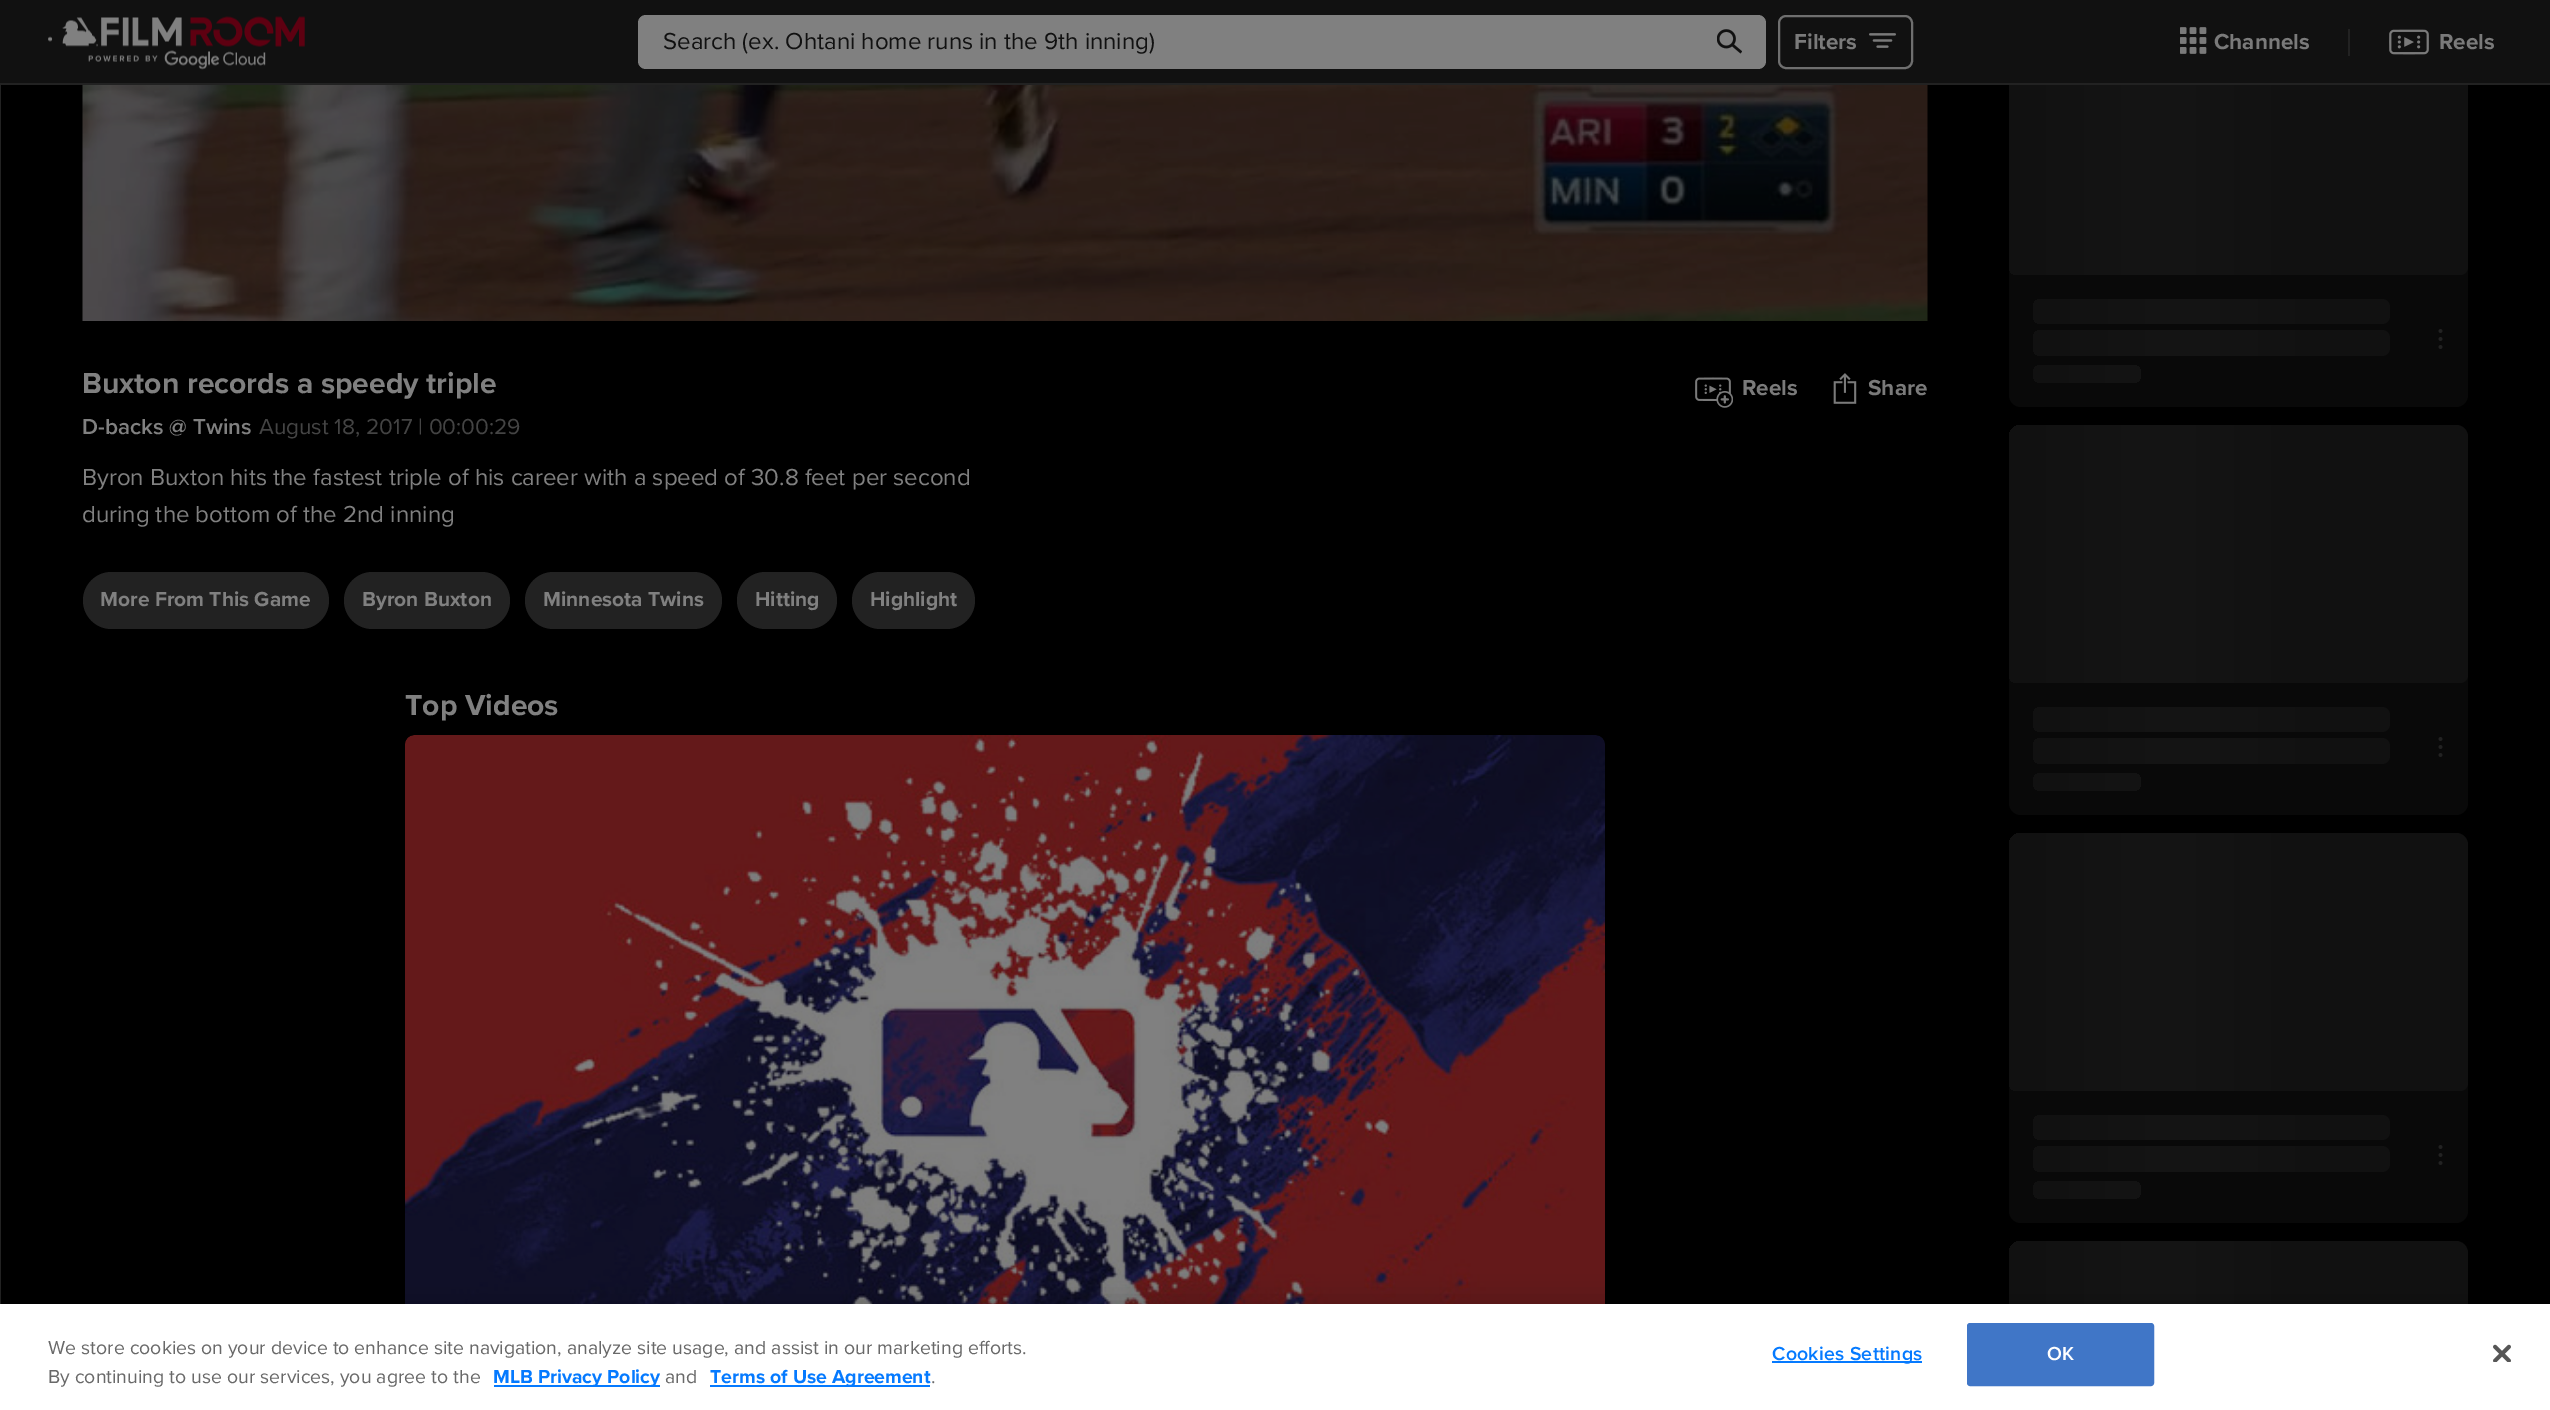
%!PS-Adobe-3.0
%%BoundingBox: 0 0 2550 1410
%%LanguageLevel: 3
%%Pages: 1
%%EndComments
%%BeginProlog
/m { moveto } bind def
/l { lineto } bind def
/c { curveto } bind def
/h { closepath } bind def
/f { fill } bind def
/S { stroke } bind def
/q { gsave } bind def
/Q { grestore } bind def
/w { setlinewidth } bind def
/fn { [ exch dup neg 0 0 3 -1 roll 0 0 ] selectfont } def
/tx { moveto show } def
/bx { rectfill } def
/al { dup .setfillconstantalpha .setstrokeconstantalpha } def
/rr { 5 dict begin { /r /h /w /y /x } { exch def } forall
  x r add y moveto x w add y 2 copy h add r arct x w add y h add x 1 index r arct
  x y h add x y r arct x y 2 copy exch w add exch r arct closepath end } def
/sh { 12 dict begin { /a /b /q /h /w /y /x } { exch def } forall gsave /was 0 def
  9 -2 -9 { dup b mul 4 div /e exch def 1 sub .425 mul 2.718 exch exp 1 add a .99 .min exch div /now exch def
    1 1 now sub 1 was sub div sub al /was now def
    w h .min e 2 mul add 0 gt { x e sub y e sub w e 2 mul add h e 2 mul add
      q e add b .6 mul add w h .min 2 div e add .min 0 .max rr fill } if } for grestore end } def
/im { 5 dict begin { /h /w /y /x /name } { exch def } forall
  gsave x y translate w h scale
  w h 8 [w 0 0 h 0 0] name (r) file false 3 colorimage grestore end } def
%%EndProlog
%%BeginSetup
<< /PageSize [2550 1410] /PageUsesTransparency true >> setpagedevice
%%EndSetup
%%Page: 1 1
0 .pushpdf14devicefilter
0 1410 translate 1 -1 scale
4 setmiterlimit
0 setgray
0 0 2550 1410 bx
0.035 setgray
2009 15 459 392 12 rr f
0.067 setgray
2021 15 m 2456 15 l 2462.5 15 2468 20.5 2468 27 c 2468 267 l 2468 271.5 2464.5 275 2460 275 c 2017 275 l 2012.5 275 2009 271.5 2009 267 c 2009 27 l 2009 20.5 2014.5 15 2021 15 c h f
q
2009 15 459 260 8 rr clip newpath
q 2021 15 m 2309 15 l 2309 275 l 2017 275 l 2012.5 275 2009 271.5 2009 267 c 2009 27 l 2009 20.5 2014.5 15 2021 15 c h clip newpath
<< /ShadingType 2 /ColorSpace /DeviceRGB /Coords [2009 145 2309 145] /Extend [true true] /Function << /FunctionType 3 /Domain [0 1] /Functions [<< /FunctionType 2 /Domain [0 1] /C0 [0.067 0.067 0.067] /C1 [0.082 0.082 0.082] /N 1 >> << /FunctionType 2 /Domain [0 1] /C0 [0.082 0.082 0.082] /C1 [0.067 0.067 0.067] /N 1 >>] /Bounds [0.5] /Encode [0 1 0 1] >> >> shfill Q
Q
0 0 2550 83 bx
0.133 setgray
0 84 1 1220 bx
0 83 2550 2 bx
(image0.raw) 48 16 257 54 im
0.502 setgray
638 15 1128 54 8 rr f
/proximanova-Regular 24 fn
0.067 setgray
(Search \(ex. Ohtani home runs in the 9th inning\)) 663 49 tx
(image1.raw) 1717 29 25 25 im
0.435 setgray
2 w
1779 16 133 52 7 rr S
/proximanova-Bold 22.5 fn
0.478 setgray
(Filters) 1794 49 tx
(image2.raw) 1869 33 27 15 im
(image3.raw) 2180 27 27 27 im
(Channels) 2214 49 tx
0.133 setgray
2348 29 2 27 bx
(image4.raw) 2389 29 40 26 im
0.478 setgray
(Reels) 2439 49 tx
(image5.raw) 82 85 1846 236 im
/proximanova-Bold 30 fn
0.502 setgray
(Buxton records a speedy triple) 82 393 tx
(image6.raw) 1695 377 38 31 im
/proximanova-Bold 22.5 fn
0.478 setgray
(Reels) 1742 395 tx
(image7.raw) 1833 373 24 31 im
(Share) 1868 395 tx
/ProximaNova-SemiBold 22.5 fn
0.502 setgray
(D-backs @ Twins) 82 434 tx
/proximanova-Regular 22.5 fn
0.267 setgray
(August 18, 2017 | 00:00:29) 259 434 tx
/proximanova-Regular 24 fn
0.502 setgray
(Byron Buxton hits the fastest triple of his career with a speed of 30.8 feet per second) 82 485 tx
(during the bottom of the 2nd inning) 82 522 tx
0.133 setgray
83 572 246 57 28.5 rr f
/proximanova-Bold 21 fn
0.502 setgray
(More From This Game) 100 606 tx
0.133 setgray
344 572 166 57 28.5 rr f
0.502 setgray
(Byron Buxton) 362 606 tx
0.133 setgray
525 572 197 57 28.5 rr f
0.502 setgray
(Minnesota Twins) 543 606 tx
0.133 setgray
737 572 100 57 28.5 rr f
0.502 setgray
(Hitting) 755 606 tx
0.133 setgray
852 572 123 57 28.5 rr f
0.502 setgray
(Highlight) 870 606 tx
/proximanova-Bold 30 fn
(Top Videos) 405 715 tx
(image8.raw) 405 735 1200 569 im
0.067 setgray
2033 299 357 25 8 rr f
q 2041 299 m 2333 299 l 2333 324 l 2041 324 l 2036.5 324 2033 320.5 2033 316 c 2033 307 l 2033 302.5 2036.5 299 2041 299 c h clip newpath
<< /ShadingType 2 /ColorSpace /DeviceRGB /Coords [2033 311 2333 311] /Extend [true true] /Function << /FunctionType 3 /Domain [0 1] /Functions [<< /FunctionType 2 /Domain [0 1] /C0 [0.067 0.067 0.067] /C1 [0.082 0.082 0.082] /N 1 >> << /FunctionType 2 /Domain [0 1] /C0 [0.082 0.082 0.082] /C1 [0.067 0.067 0.067] /N 1 >>] /Bounds [0.5] /Encode [0 1 0 1] >> >> shfill Q
2033 330 357 26 8 rr f
q 2041 330 m 2333 330 l 2333 356 l 2041 356 l 2036.5 356 2033 352.5 2033 348 c 2033 338 l 2033 333.5 2036.5 330 2041 330 c h clip newpath
<< /ShadingType 2 /ColorSpace /DeviceRGB /Coords [2033 343 2333 343] /Extend [true true] /Function << /FunctionType 3 /Domain [0 1] /Functions [<< /FunctionType 2 /Domain [0 1] /C0 [0.067 0.067 0.067] /C1 [0.082 0.082 0.082] /N 1 >> << /FunctionType 2 /Domain [0 1] /C0 [0.082 0.082 0.082] /C1 [0.067 0.067 0.067] /N 1 >>] /Bounds [0.5] /Encode [0 1 0 1] >> >> shfill Q
q 2033 365 108 18 8 rr clip newpath
<< /ShadingType 2 /ColorSpace /DeviceRGB /Coords [2033 374 2333 374] /Extend [true true] /Function << /FunctionType 3 /Domain [0 1] /Functions [<< /FunctionType 2 /Domain [0 1] /C0 [0.067 0.067 0.067] /C1 [0.082 0.082 0.082] /N 1 >> << /FunctionType 2 /Domain [0 1] /C0 [0.082 0.082 0.082] /C1 [0.067 0.067 0.067] /N 1 >>] /Bounds [0.5] /Encode [0 1 0 1] >> >> shfill Q
(image9.raw) 2438 329 5 20 im
0.035 setgray
2009 425 459 390 12 rr f
0.067 setgray
2021 425 m 2456 425 l 2462.5 425 2468 430.5 2468 437 c 2468 675 l 2468 679.5 2464.5 683 2460 683 c 2017 683 l 2012.5 683 2009 679.5 2009 675 c 2009 437 l 2009 430.5 2014.5 425 2021 425 c h f
q
2009 425 459 258 8 rr clip newpath
q 2021 425 m 2309 425 l 2309 683 l 2017 683 l 2012.5 683 2009 679.5 2009 675 c 2009 437 l 2009 430.5 2014.5 425 2021 425 c h clip newpath
<< /ShadingType 2 /ColorSpace /DeviceRGB /Coords [2009 554 2309 554] /Extend [true true] /Function << /FunctionType 3 /Domain [0 1] /Functions [<< /FunctionType 2 /Domain [0 1] /C0 [0.067 0.067 0.067] /C1 [0.082 0.082 0.082] /N 1 >> << /FunctionType 2 /Domain [0 1] /C0 [0.082 0.082 0.082] /C1 [0.067 0.067 0.067] /N 1 >>] /Bounds [0.5] /Encode [0 1 0 1] >> >> shfill Q
Q
2033 707 357 25 8 rr f
q 2041 707 m 2333 707 l 2333 732 l 2041 732 l 2036.5 732 2033 728.5 2033 724 c 2033 715 l 2033 710.5 2036.5 707 2041 707 c h clip newpath
<< /ShadingType 2 /ColorSpace /DeviceRGB /Coords [2033 719 2333 719] /Extend [true true] /Function << /FunctionType 3 /Domain [0 1] /Functions [<< /FunctionType 2 /Domain [0 1] /C0 [0.067 0.067 0.067] /C1 [0.082 0.082 0.082] /N 1 >> << /FunctionType 2 /Domain [0 1] /C0 [0.082 0.082 0.082] /C1 [0.067 0.067 0.067] /N 1 >>] /Bounds [0.5] /Encode [0 1 0 1] >> >> shfill Q
2033 738 357 26 8 rr f
q 2041 738 m 2333 738 l 2333 764 l 2041 764 l 2036.5 764 2033 760.5 2033 756 c 2033 746 l 2033 741.5 2036.5 738 2041 738 c h clip newpath
<< /ShadingType 2 /ColorSpace /DeviceRGB /Coords [2033 751 2333 751] /Extend [true true] /Function << /FunctionType 3 /Domain [0 1] /Functions [<< /FunctionType 2 /Domain [0 1] /C0 [0.067 0.067 0.067] /C1 [0.082 0.082 0.082] /N 1 >> << /FunctionType 2 /Domain [0 1] /C0 [0.082 0.082 0.082] /C1 [0.067 0.067 0.067] /N 1 >>] /Bounds [0.5] /Encode [0 1 0 1] >> >> shfill Q
q 2033 773 108 18 8 rr clip newpath
<< /ShadingType 2 /ColorSpace /DeviceRGB /Coords [2033 782 2333 782] /Extend [true true] /Function << /FunctionType 3 /Domain [0 1] /Functions [<< /FunctionType 2 /Domain [0 1] /C0 [0.067 0.067 0.067] /C1 [0.082 0.082 0.082] /N 1 >> << /FunctionType 2 /Domain [0 1] /C0 [0.082 0.082 0.082] /C1 [0.067 0.067 0.067] /N 1 >>] /Bounds [0.5] /Encode [0 1 0 1] >> >> shfill Q
(image9.raw) 2438 737 5 20 im
0.035 setgray
2009 833 459 390 12 rr f
0.067 setgray
2021 833 m 2456 833 l 2462.5 833 2468 838.5 2468 845 c 2468 1083 l 2468 1087.5 2464.5 1091 2460 1091 c 2017 1091 l 2012.5 1091 2009 1087.5 2009 1083 c 2009 845 l 2009 838.5 2014.5 833 2021 833 c h f
q
2009 833 459 258 8 rr clip newpath
q 2021 833 m 2309 833 l 2309 1091 l 2017 1091 l 2012.5 1091 2009 1087.5 2009 1083 c 2009 845 l 2009 838.5 2014.5 833 2021 833 c h clip newpath
<< /ShadingType 2 /ColorSpace /DeviceRGB /Coords [2009 962 2309 962] /Extend [true true] /Function << /FunctionType 3 /Domain [0 1] /Functions [<< /FunctionType 2 /Domain [0 1] /C0 [0.067 0.067 0.067] /C1 [0.082 0.082 0.082] /N 1 >> << /FunctionType 2 /Domain [0 1] /C0 [0.082 0.082 0.082] /C1 [0.067 0.067 0.067] /N 1 >>] /Bounds [0.5] /Encode [0 1 0 1] >> >> shfill Q
Q
2033 1115 357 25 8 rr f
q 2041 1115 m 2333 1115 l 2333 1140 l 2041 1140 l 2036.5 1140 2033 1136.5 2033 1132 c 2033 1123 l 2033 1118.5 2036.5 1115 2041 1115 c h clip newpath
<< /ShadingType 2 /ColorSpace /DeviceRGB /Coords [2033 1127 2333 1127] /Extend [true true] /Function << /FunctionType 3 /Domain [0 1] /Functions [<< /FunctionType 2 /Domain [0 1] /C0 [0.067 0.067 0.067] /C1 [0.082 0.082 0.082] /N 1 >> << /FunctionType 2 /Domain [0 1] /C0 [0.082 0.082 0.082] /C1 [0.067 0.067 0.067] /N 1 >>] /Bounds [0.5] /Encode [0 1 0 1] >> >> shfill Q
2033 1146 357 26 8 rr f
q 2041 1146 m 2333 1146 l 2333 1172 l 2041 1172 l 2036.5 1172 2033 1168.5 2033 1164 c 2033 1154 l 2033 1149.5 2036.5 1146 2041 1146 c h clip newpath
<< /ShadingType 2 /ColorSpace /DeviceRGB /Coords [2033 1159 2333 1159] /Extend [true true] /Function << /FunctionType 3 /Domain [0 1] /Functions [<< /FunctionType 2 /Domain [0 1] /C0 [0.067 0.067 0.067] /C1 [0.082 0.082 0.082] /N 1 >> << /FunctionType 2 /Domain [0 1] /C0 [0.082 0.082 0.082] /C1 [0.067 0.067 0.067] /N 1 >>] /Bounds [0.5] /Encode [0 1 0 1] >> >> shfill Q
q 2033 1181 108 18 8 rr clip newpath
<< /ShadingType 2 /ColorSpace /DeviceRGB /Coords [2033 1190 2333 1190] /Extend [true true] /Function << /FunctionType 3 /Domain [0 1] /Functions [<< /FunctionType 2 /Domain [0 1] /C0 [0.067 0.067 0.067] /C1 [0.082 0.082 0.082] /N 1 >> << /FunctionType 2 /Domain [0 1] /C0 [0.082 0.082 0.082] /C1 [0.067 0.067 0.067] /N 1 >>] /Bounds [0.5] /Encode [0 1 0 1] >> >> shfill Q
(image9.raw) 2438 1145 5 20 im
2021 1241 m 2456 1241 l 2462.5 1241 2468 1246.5 2468 1253 c 2468 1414 l 2468 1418.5 2464.5 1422 2460 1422 c 2017 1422 l 2012.5 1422 2009 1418.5 2009 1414 c 2009 1253 l 2009 1246.5 2014.5 1241 2021 1241 c h f
q 2021 1241 m 2309 1241 l 2309 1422 l 2017 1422 l 2012.5 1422 2009 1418.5 2009 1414 c 2009 1253 l 2009 1246.5 2014.5 1241 2021 1241 c h clip newpath
<< /ShadingType 2 /ColorSpace /DeviceRGB /Coords [2009 1370 2309 1370] /Extend [true true] /Function << /FunctionType 3 /Domain [0 1] /Functions [<< /FunctionType 2 /Domain [0 1] /C0 [0.067 0.067 0.067] /C1 [0.082 0.082 0.082] /N 1 >> << /FunctionType 2 /Domain [0 1] /C0 [0.082 0.082 0.082] /C1 [0.067 0.067 0.067] /N 1 >>] /Bounds [0.5] /Encode [0 1 0 1] >> >> shfill Q
0 setgray
0 1304 2550 106 0 13.5 0.2 sh
1 setgray
0 1304 2550 106 bx
/proximanova-Regular 19.5 fn
0.412 setgray
(We store cookies on your device to enhance site navigation, analyze site usage, and assist in our marketing efforts.) 48 1354 tx
(By continuing to use our services, you agree to the) 48 1383 tx
0.02 0.478 1 setrgbcolor
494 1385 166 2 bx
/proximanova-Bold 19.5 fn
(MLB Privacy Policy) 493 1383 tx
/proximanova-Regular 19.5 fn
0.412 setgray
(and) 665 1383 tx
0.02 0.478 1 setrgbcolor
710 1385 220 2 bx
/proximanova-Bold 19.5 fn
(Terms of Use Agreement) 710 1383 tx
/proximanova-Regular 19.5 fn
0.412 setgray
(.) 931 1383 tx
0.02 0.478 1 setrgbcolor
1772 1361 150 2 bx
/ProximaNova-SemiBold 19.5 fn
1772 1360 m 0.25 0 (Cookies Settings) ashow
0.251 0.463 0.78 setrgbcolor
1968 1324 185 61 2 rr q f Q
S
1 setgray
2047 1360 m 0.25 0 (OK) ashow
(image10.raw) 2493 1344 18 18 im
.poppdf14devicefilter showpage
%%EOF
